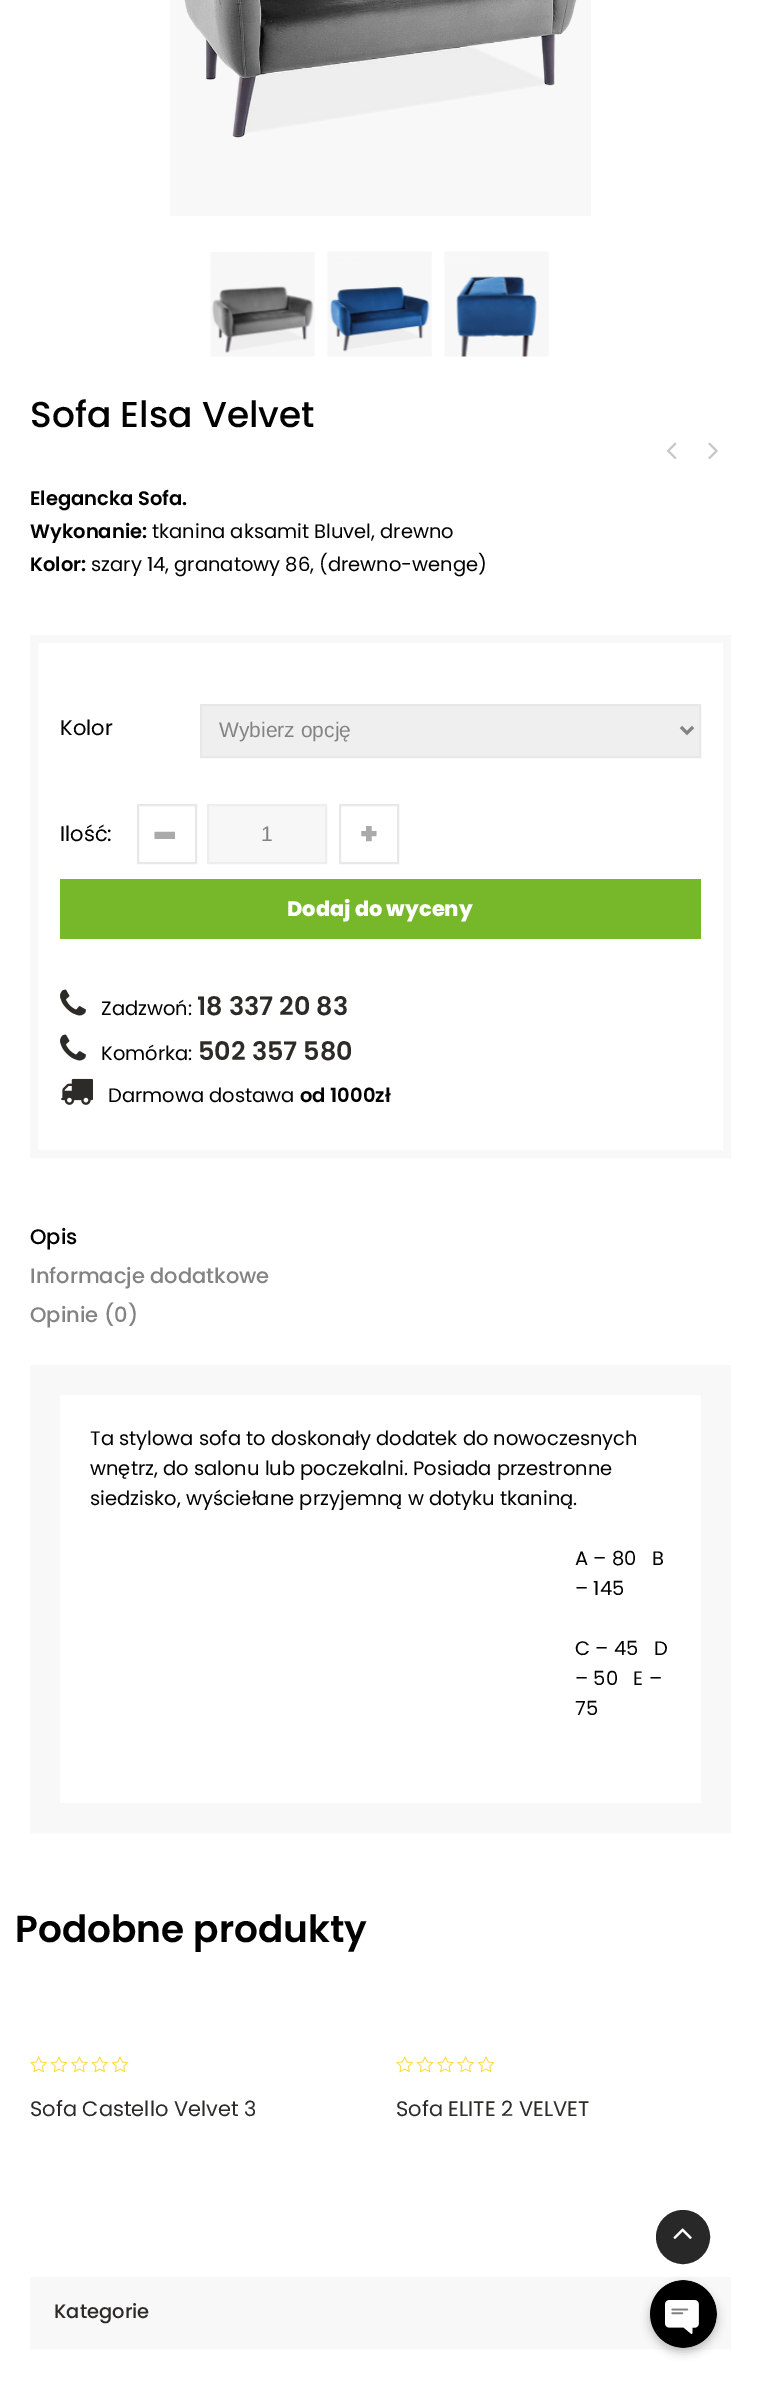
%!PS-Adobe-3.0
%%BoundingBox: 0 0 760 2390
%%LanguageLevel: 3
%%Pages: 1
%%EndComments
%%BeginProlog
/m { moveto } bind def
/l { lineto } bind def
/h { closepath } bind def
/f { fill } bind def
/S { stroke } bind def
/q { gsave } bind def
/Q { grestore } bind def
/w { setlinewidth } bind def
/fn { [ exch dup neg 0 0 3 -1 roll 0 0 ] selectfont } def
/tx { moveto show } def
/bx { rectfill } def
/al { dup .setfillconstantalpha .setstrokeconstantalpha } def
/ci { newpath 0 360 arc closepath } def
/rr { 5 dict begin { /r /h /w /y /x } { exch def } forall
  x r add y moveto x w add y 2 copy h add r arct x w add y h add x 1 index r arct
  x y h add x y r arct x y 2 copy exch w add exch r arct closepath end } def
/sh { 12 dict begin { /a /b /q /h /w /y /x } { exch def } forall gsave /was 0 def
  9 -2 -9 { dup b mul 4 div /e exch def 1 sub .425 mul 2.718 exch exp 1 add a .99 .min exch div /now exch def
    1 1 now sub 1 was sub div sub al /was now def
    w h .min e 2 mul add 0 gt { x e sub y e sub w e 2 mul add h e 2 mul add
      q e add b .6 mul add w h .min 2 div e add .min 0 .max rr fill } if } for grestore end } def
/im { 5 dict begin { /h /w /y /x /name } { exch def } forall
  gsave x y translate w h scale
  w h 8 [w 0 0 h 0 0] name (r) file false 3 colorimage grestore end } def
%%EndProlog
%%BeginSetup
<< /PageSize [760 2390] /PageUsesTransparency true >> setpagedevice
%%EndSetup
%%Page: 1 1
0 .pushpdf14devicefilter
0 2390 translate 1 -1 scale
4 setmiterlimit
1 setgray
0 0 760 2390 bx
(image0.raw) 170 0 421 216 im
(image1.raw) 210 252 105 105 im
(image2.raw) 327 251 105 106 im
(image3.raw) 444 251 105 106 im
/Poppins-Medium 36 fn
0 setgray
(Sofa Elsa Velvet) 30 427 tx
(image4.raw) 666 442 11 17 im
(image5.raw) 708 442 10 18 im
/Poppins-SemiBold 19.5 fn
(Elegancka Sofa.) 30 505 tx
(Wykonanie:) 30 538 tx
/Poppins-Regular 19.5 fn
(tkanina aksamit Bluvel, drewno) 152 538 tx
/Poppins-SemiBold 19.5 fn
(Kolor:) 30 571 tx
/Poppins-Regular 19.5 fn
(szary 14, granatowy 86, \(drewno-wenge\)) 91 571 tx
0.973 setgray
8 w
34 639 693 515 rectstroke
/Poppins-Regular 21 fn
0 setgray
(Kolor) 60 735 tx
0.937 setgray
201 705 m 700 705 l 700 757 l 201 757 l h q f Q
0.91 setgray
2 w
S
0.514 setgray
3 w
681 727 m 687 733 l 693 727 l S
/LiberationSans-Regular 21 fn
(Wybierz opcję) 219 737 tx
/Poppins-Regular 21 fn
0 setgray
(Ilość:) 60 841 tx
0.91 setgray
2 w
138 805 58 58 rectstroke
/Poppins-ExtraBold 45 fn
0.667 setgray
(-) 153 851 tx
0.969 setgray
208 805 m 326 805 l 326 863 l 208 863 l h q f Q
0.933 setgray
S
/LiberationSans-Regular 21 fn
0.514 setgray
(1) 261 841 tx
0.91 setgray
340 805 58 58 rectstroke
/Poppins-ExtraBold 30 fn
0.667 setgray
(+) 360 844 tx
0.463 0.722 0.165 setrgbcolor
60 879 641 60 bx
/Poppins-ExtraBold 21 fn
1 setgray
(Dodaj do wyceny) 287 916 tx
(image6.raw) 60 989 26 27 im
/Poppins-Regular 19.5 fn
0 setgray
(Zadzwoń:) 101 1015 tx
/Poppins-SemiBold 25.5 fn
0.173 0.169 0.157 setrgbcolor
(18 337 20 83) 197 1015 tx
(image6.raw) 60 1034 26 27 im
/Poppins-Regular 19.5 fn
0 setgray
(Komórka:) 101 1060 tx
/Poppins-SemiBold 25.5 fn
0.173 0.169 0.157 setrgbcolor
(502 357 580) 198 1060 tx
(image7.raw) 61 1078 32 27 im
/Poppins-Regular 19.5 fn
0 setgray
(Darmowa dostawa) 108 1102 tx
/Poppins-SemiBold 19.5 fn
(od 1000zł) 300 1102 tx
/Poppins-Medium 21 fn
(Opis) 30 1244 tx
0.514 setgray
(Informacje dodatkowe) 30 1283 tx
(Opinie \(0\)) 30 1322 tx
0.973 setgray
30 w
45 1380 671 438 rectstroke
/Poppins-Regular 19.5 fn
0 setgray
(Ta stylowa sofa to doskonały dodatek do nowoczesnych) 90 1445 tx
(wnętrz, do salonu lub poczekalni. Posiada przestronne) 90 1475 tx
(siedzisko, wyściełane przyjemną w dotyku tkaniną.) 90 1505 tx
(A – 80   B) 575 1565 tx
(– 145) 575 1595 tx
(C – 45   D) 575 1655 tx
(– 50   E –) 575 1685 tx
(75) 575 1715 tx
/Poppins-SemiBold 37.5 fn
(Podobne produkty) 15 1942 tx
(image8.raw) 30 2056 99 17 im
/Poppins-Regular 21 fn
0.173 0.169 0.157 setrgbcolor
(Sofa Castello Velvet 3) 30 2116 tx
(image8.raw) 396 2056 99 17 im
(Sofa ELITE 2 VELVET) 396 2116 tx
0.973 setgray
2 w
31 2278 699 70 rectstroke
32 2279 697 68 bx
/Poppins-Medium 19.5 fn
0.173 0.169 0.157 setrgbcolor
(Kategorie) 54 2318 tx
0.157 setgray
683 2237 25.5 ci q f Q
3 w
S
(image9.raw) 673 2228 19 11 im
0 setgray
650 2285 67 67 33.5 4.5 0.25 sh
(image10.raw) 650 2280 67 68 im
.poppdf14devicefilter showpage
%%EOF
